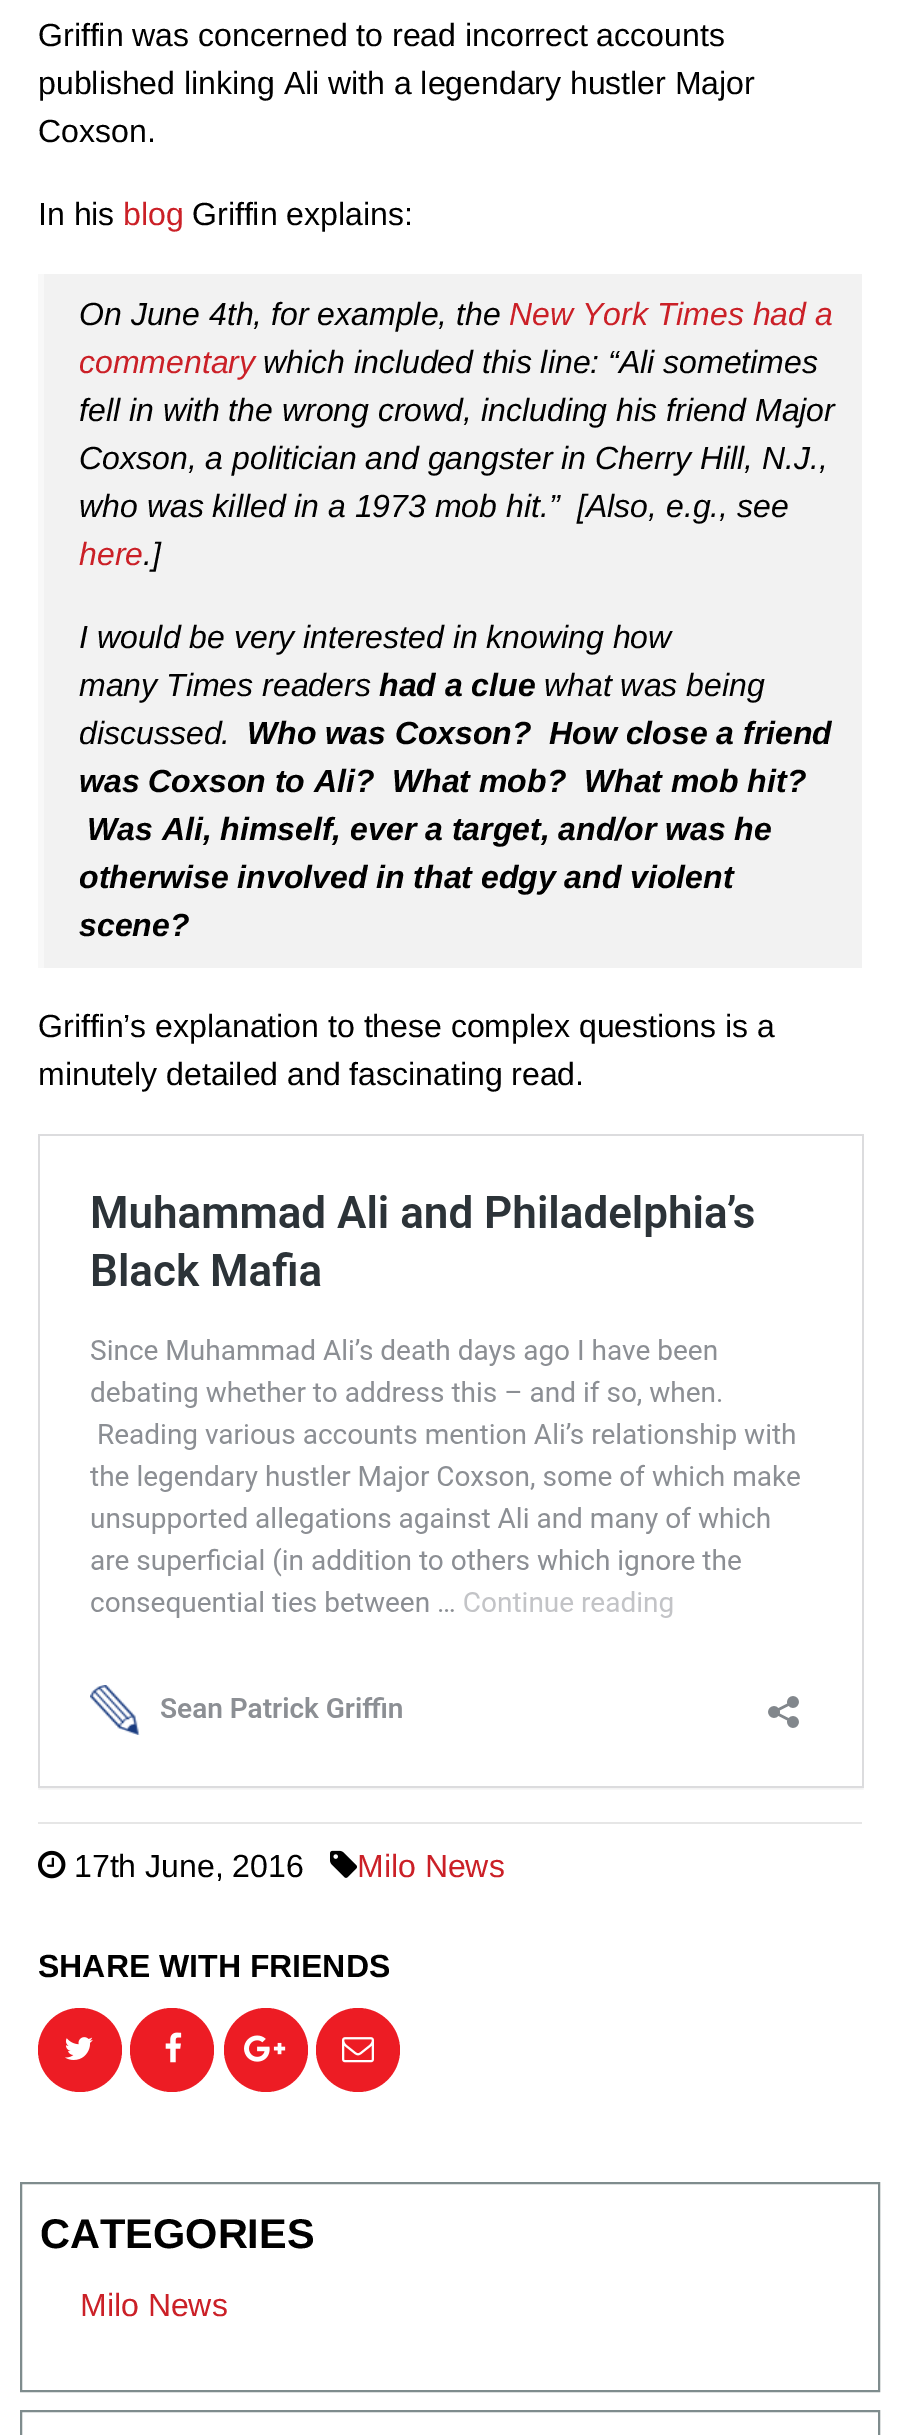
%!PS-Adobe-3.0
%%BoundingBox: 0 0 900 2435
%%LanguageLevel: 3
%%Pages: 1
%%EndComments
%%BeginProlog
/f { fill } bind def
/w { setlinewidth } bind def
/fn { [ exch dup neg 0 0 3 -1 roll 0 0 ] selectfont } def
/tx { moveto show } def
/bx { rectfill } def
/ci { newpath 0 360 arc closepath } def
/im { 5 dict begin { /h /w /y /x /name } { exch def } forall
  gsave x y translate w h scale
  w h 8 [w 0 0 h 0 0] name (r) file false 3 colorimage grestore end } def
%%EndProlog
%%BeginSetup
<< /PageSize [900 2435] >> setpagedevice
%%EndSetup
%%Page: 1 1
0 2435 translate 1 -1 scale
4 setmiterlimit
1 setgray
0 0 900 2435 bx
/LiberationSans-Regular 32 fn
0 setgray
(Griffin was concerned to read incorrect accounts) 38 46 tx
(published linking Ali with a legendary hustler Major) 38 94 tx
(Coxson.) 38 142 tx
(In his) 38 225 tx
0.796 0.125 0.153 setrgbcolor
(blog) 123 225 tx
0 setgray
(Griffin explains:) 192 225 tx
0.949 setgray
44 274 818 694 bx
0.973 setgray
38 274 6 694 bx
/LiberationSans-Italic 32 fn
0 setgray
(On June 4th, for example, the) 79 325 tx
0.796 0.125 0.153 setrgbcolor
(New York Times had a) 509 325 tx
(commentary) 79 373 tx
0 setgray
(which included this line: “Ali sometimes) 263 373 tx
(fell in with the wrong crowd, including his friend Major) 79 421 tx
(Coxson, a politician and gangster in Cherry Hill, N.J.,) 79 469 tx
(who was killed in a 1973 mob hit.”  [Also, e.g., see) 79 517 tx
0.796 0.125 0.153 setrgbcolor
(here) 79 565 tx
0 setgray
(.]) 143 565 tx
(I would be very interested in knowing how) 79 648 tx
(many Times readers) 79 696 tx
/LiberationSans-BoldItalic 32 fn
(had a clue) 379 696 tx
/LiberationSans-Italic 32 fn
(what was being) 544 696 tx
(discussed.) 79 744 tx
/LiberationSans-BoldItalic 32 fn
(Who was Coxson?  How close a friend) 247 744 tx
(was Coxson to Ali?  What mob?  What mob hit?) 79 792 tx
(Was Ali, himself, ever a target, and/or was he) 87 840 tx
(otherwise involved in that edgy and violent) 79 888 tx
(scene?) 79 936 tx
/LiberationSans-Regular 32 fn
(Griffin’s explanation to these complex questions is a) 38 1037 tx
(minutely detailed and fascinating read.) 38 1085 tx
(image0.raw) 38 1134 826 656 im
0.902 setgray
38 1822 824 2 bx
(image1.raw) 38 1850 28 29 im
0 setgray
(17th June, 2016) 74 1877 tx
(image2.raw) 330 1850 27 28 im
0.796 0.125 0.153 setrgbcolor
(Milo News) 357 1877 tx
/LiberationSans-Bold 32 fn
0 setgray
(SHARE WITH FRIENDS) 38 1977 tx
0.929 0.11 0.141 setrgbcolor
80 2050 42 ci f
(image3.raw) 65 2037 28 23 im
172 2050 42 ci f
(image4.raw) 165 2032 17 31 im
266 2050 42 ci f
(image5.raw) 244 2035 42 27 im
358 2050 42 ci f
(image6.raw) 342 2037 32 26 im
0.498 0.549 0.553 setrgbcolor
2 w
21 2183 858 208 rectstroke
/LiberationSans-Bold 41.5 fn
0 setgray
(CATEGORIES) 40 2248 tx
/LiberationSans-Regular 32 fn
0.796 0.125 0.153 setrgbcolor
(Milo News) 80 2316 tx
0.498 0.549 0.553 setrgbcolor
21 2411 858 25 rectstroke
showpage
%%EOF
